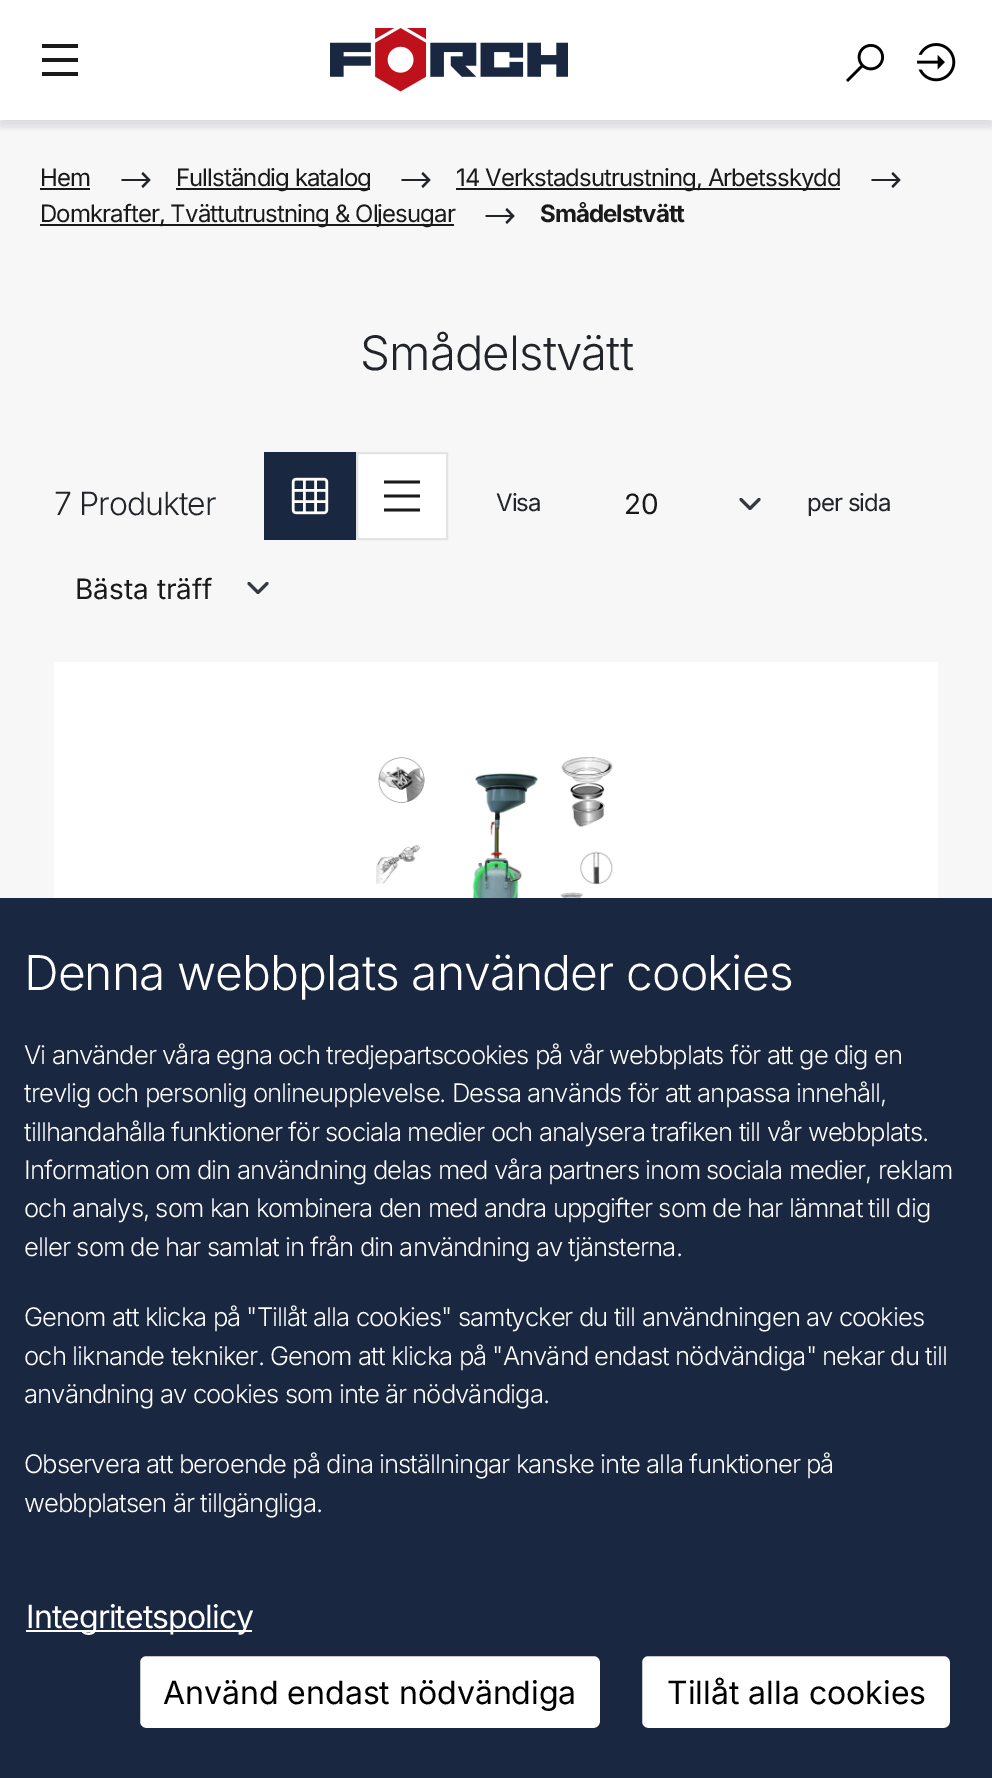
%!PS-Adobe-3.0
%%BoundingBox: 0 0 992 1778
%%LanguageLevel: 3
%%Pages: 1
%%EndComments
%%BeginProlog
/m { moveto } bind def
/l { lineto } bind def
/h { closepath } bind def
/f { fill } bind def
/S { stroke } bind def
/q { gsave } bind def
/Q { grestore } bind def
/w { setlinewidth } bind def
/fn { [ exch dup neg 0 0 3 -1 roll 0 0 ] selectfont } def
/tx { moveto show } def
/bx { rectfill } def
/al { dup .setfillconstantalpha .setstrokeconstantalpha } def
/rr { 5 dict begin { /r /h /w /y /x } { exch def } forall
  x r add y moveto x w add y 2 copy h add r arct x w add y h add x 1 index r arct
  x y h add x y r arct x y 2 copy exch w add exch r arct closepath end } def
/sh { 12 dict begin { /a /b /q /h /w /y /x } { exch def } forall gsave /was 0 def
  9 -2 -9 { dup b mul 4 div /e exch def 1 sub .425 mul 2.718 exch exp 1 add a .99 .min exch div /now exch def
    1 1 now sub 1 was sub div sub al /was now def
    w h .min e 2 mul add 0 gt { x e sub y e sub w e 2 mul add h e 2 mul add
      q e add b .6 mul add w h .min 2 div e add .min 0 .max rr fill } if } for grestore end } def
/im { 5 dict begin { /h /w /y /x /name } { exch def } forall
  gsave x y translate w h scale
  w h 8 [w 0 0 h 0 0] name (r) file false 3 colorimage grestore end } def
%%EndProlog
%%BeginSetup
<< /PageSize [992 1778] /PageUsesTransparency true >> setpagedevice
%%EndSetup
%%Page: 1 1
0 .pushpdf14devicefilter
0 1778 translate 1 -1 scale
4 setmiterlimit
0.973 0.969 0.973 setrgbcolor
0 0 992 1778 bx
1 setgray
0 0 992 120 bx
0.102 setgray
42 44 36 4 bx
42 58 36 4 bx
42 72 36 4 bx
(image0.raw) 330 28 238 64 im
(image1.raw) 846 43 39 39 im
(image2.raw) 917 43 39 39 im
q
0 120 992 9 rectclip
0.086 0.145 0.247 setrgbcolor
0 6 992 120 0 6 0.06 sh
Q
q
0 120 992 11 rectclip
0.086 0.145 0.247 setrgbcolor
0 6 992 120 0 6 0.1 sh
Q
/Inter-Regular 24 fn
40 186 m -0.95 0 (Hem) ashow
40 188 50 2 bx
0.129 0.145 0.161 setrgbcolor
143 172 m 141.5 174 l 146.5 179 l 121.5 179 l 121.5 181 l 146.5 181 l 141.5 186 l 143 188 l 150.5 180 l h eofill
0.102 setgray
176 188 194 2 bx
176 186 m -0.95 0 (Fullständig katalog) ashow
0.129 0.145 0.161 setrgbcolor
423 172 m 421.5 174 l 426.5 179 l 401.5 179 l 401.5 181 l 426.5 181 l 421.5 186 l 423 188 l 430.5 180 l h eofill
0.102 setgray
456 188 384 2 bx
456 186 m -0.95 0 (14 Verkstadsutrustning, Arbetsskydd) ashow
0.129 0.145 0.161 setrgbcolor
893 172 m 891.5 174 l 896.5 179 l 871.5 179 l 871.5 181 l 896.5 181 l 891.5 186 l 893 188 l 900.5 180 l h eofill
0.102 setgray
40 224 414 2 bx
40 222 m -0.95 0 (Domkrafter, Tvättutrustning & Oljesugar) ashow
0.129 0.145 0.161 setrgbcolor
507 208 m 505.5 210 l 510.5 215 l 485.5 215 l 485.5 217 l 510.5 217 l 505.5 222 l 507 224 l 514.5 216 l h eofill
/Inter-Bold 24 fn
0.102 setgray
540 222 m -0.95 0 (Smådelstvätt) ashow
/Inter-Light 47.5 fn
0.129 0.145 0.161 setrgbcolor
360 370 m -0.95 0 (Smådelstvätt) ashow
/Inter-Light 32 fn
54 515 m -0.95 0 (7 Produkter) ashow
0.102 0.153 0.251 setrgbcolor
264 452 92 88 bx
(image3.raw) 291 477 38 38 im
1 setgray
357 453 m 447 453 l 447 539 l 357 539 l h q f Q
0.89 setgray
2 w
S
0.102 setgray
384 480.5 m 384 483.5 l 420 483.5 l 420 480.5 l h 384 494.5 m 384 497.5 l 420 497.5 l 420 494.5 l h 384 508.5 m 384 511.5 l 420 511.5 l 420 508.5 l h eofill
/Inter-Regular 24 fn
0.129 0.145 0.161 setrgbcolor
496 511 m -0.95 0 (Visa) ashow
0.204 0.227 0.251 setrgbcolor
3 w
1 setlinecap
1 setlinejoin
741 499.5 m 750 508.5 l 759 499.5 l S
/Inter-Regular 28 fn
0.102 setgray
(20) 624 514 tx
/Inter-Regular 24 fn
0.129 0.145 0.161 setrgbcolor
807 511 m -0.95 0 (per sida) ashow
0.204 0.227 0.251 setrgbcolor
249 583.5 m 258 592.5 l 267 583.5 l S
/Inter-Regular 28 fn
0.102 setgray
(Bästa träff) 75 599 tx
1 setgray
54 662 884 236 bx
(image4.raw) 376 757 238 141 im
0.102 0.153 0.251 setrgbcolor
0 898 992 880 bx
/Inter-Light 48 fn
1 setgray
24 990 m -0.95 0 (Denna webbplats använder cookies) ashow
/Inter-Light 25.6 fn
24 1064 m -0.95 0 (Vi använder våra egna och tredjepartscookies på vår webbplats för att ge dig en) ashow
24 1102 m -0.95 0 (trevlig och personlig onlineupplevelse. Dessa används för att anpassa innehåll,) ashow
24 1141 m -0.95 0 (tillhandahålla funktioner för sociala medier och analysera trafiken till vår webbplats.) ashow
24 1179 m -0.95 0 (Information om din användning delas med våra partners inom sociala medier, reklam) ashow
24 1217 m -0.95 0 (och analys, som kan kombinera den med andra uppgifter som de har lämnat till dig) ashow
24 1256 m -0.95 0 (eller som de har samlat in från din användning av tjänsterna.) ashow
24 1326 m -0.95 0 (Genom att klicka på "Tillåt alla cookies" samtycker du till användningen av cookies) ashow
24 1365 m -0.95 0 (och liknande tekniker. Genom att klicka på "Använd endast nödvändiga" nekar du till) ashow
24 1403 m -0.95 0 (användning av cookies som inte är nödvändiga.) ashow
24 1473 m -0.95 0 (Observera att beroende på dina inställningar kanske inte alla funktioner på) ashow
24 1512 m -0.95 0 (webbplatsen är tillgängliga.) ashow
26 1630 226 2 bx
/Inter-Regular 32 fn
26 1628 m -0.95 0 (Integritetspolicy) ashow
139 1655 462 74 7 rr q f Q
0.102 0.153 0.251 setrgbcolor
2 w
0 setlinecap
0 setlinejoin
S
0 setgray
(Använd endast nödvändiga) 163 1704 tx
1 setgray
641 1655 310 74 7 rr q f Q
0.102 0.153 0.251 setrgbcolor
S
0 setgray
(Tillåt alla cookies) 667 1704 tx
.poppdf14devicefilter showpage
%%EOF
